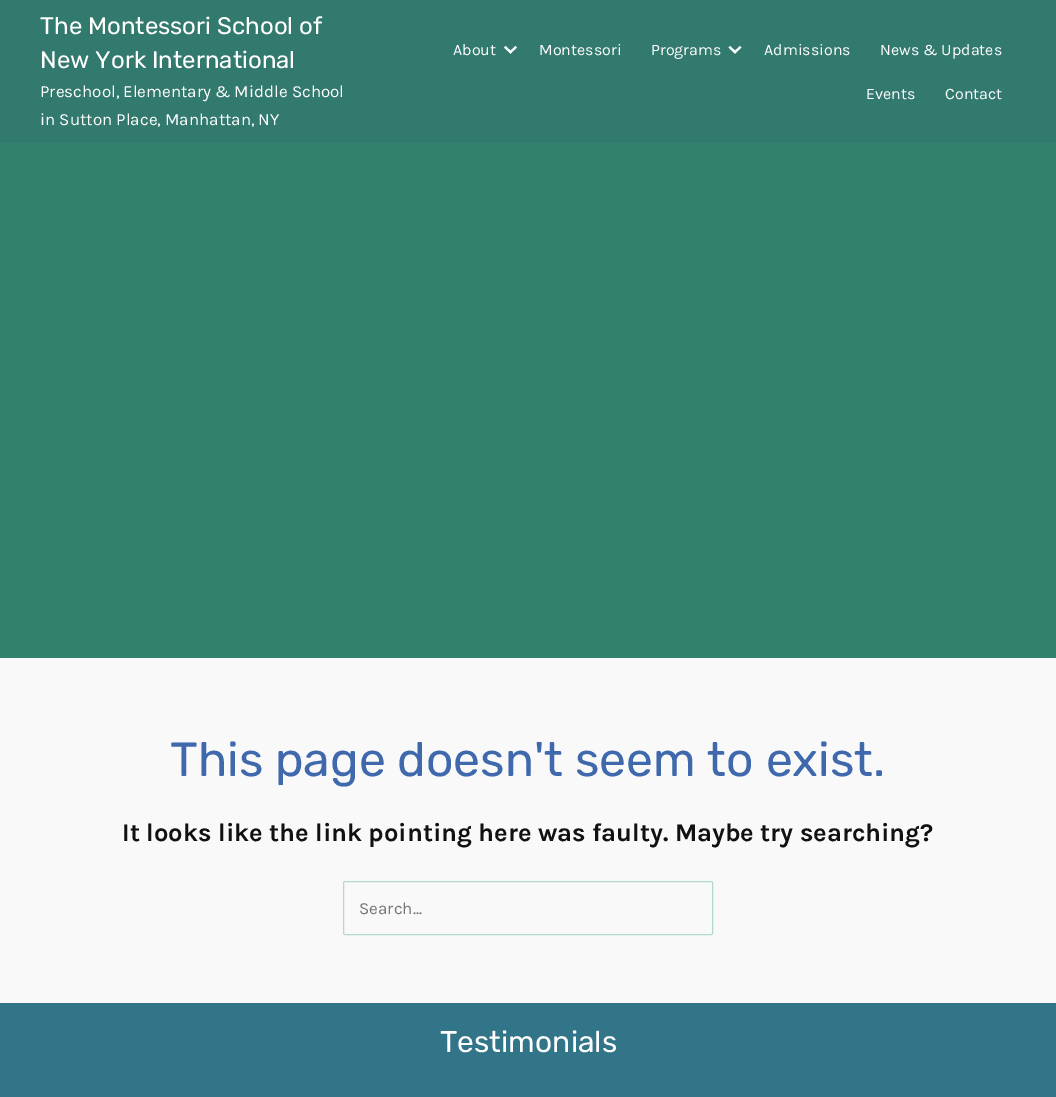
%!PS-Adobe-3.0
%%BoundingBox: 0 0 1056 1097
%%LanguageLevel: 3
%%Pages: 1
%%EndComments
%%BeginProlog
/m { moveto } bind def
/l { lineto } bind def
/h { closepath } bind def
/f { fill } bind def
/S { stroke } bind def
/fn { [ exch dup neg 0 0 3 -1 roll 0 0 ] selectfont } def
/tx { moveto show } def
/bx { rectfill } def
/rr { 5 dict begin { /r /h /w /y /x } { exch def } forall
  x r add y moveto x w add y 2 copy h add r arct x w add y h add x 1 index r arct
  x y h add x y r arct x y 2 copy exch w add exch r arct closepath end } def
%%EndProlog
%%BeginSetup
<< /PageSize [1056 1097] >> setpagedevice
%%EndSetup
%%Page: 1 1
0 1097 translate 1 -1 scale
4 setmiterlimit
0.976 setgray
0 0 1056 1097 bx
0.196 0.475 0.431 setrgbcolor
0 0 1056 143 bx
/Rubik-Regular 24 fn
1 setgray
(The Montessori School of) 40 34 tx
(New York International) 40 68 tx
/Karla-Regular 17 fn
(Preschool, Elementary & Middle School) 40 97 tx
(in Sutton Place, Manhattan, NY) 40 125 tx
/Karla-Regular 16 fn
(About) 453 55 tx
515.5 46 m 517 47.5 l 510.5 53.5 l 509 52 l h f
505.5 46 m 512 52 l 510.5 53.5 l 504 47.5 l h f
(Montessori) 539 55 tx
(Programs) 651 55 tx
740 46 m 741.5 47.5 l 735 53.5 l 733.5 52 l h f
730 46 m 736.5 52 l 735 53.5 l 728.5 47.5 l h f
(Admissions) 764 55 tx
(News & Updates) 880 55 tx
(Events) 866 99 tx
(Contact) 945 99 tx
0.192 0.506 0.424 setrgbcolor
0 143 1056 515 bx
/Rubik-Regular 48 fn
0.247 0.412 0.675 setrgbcolor
(This page doesn't seem to exist.) 170 776 tx
/Karla-Bold 25.5 fn
0.067 setgray
(It looks like the link pointing here was faulty. Maybe try searching?) 122 841 tx
0.702 0.851 0.827 setrgbcolor
343.5 881.5 369 53 1.5 rr S
/Karla-Regular 17 fn
0.459 setgray
(Search...) 359 914 tx
0.196 0.455 0.533 setrgbcolor
0 1003 1056 94 bx
/Rubik-Regular 30 fn
1 setgray
(Testimonials) 440 1052 tx
showpage
%%EOF
